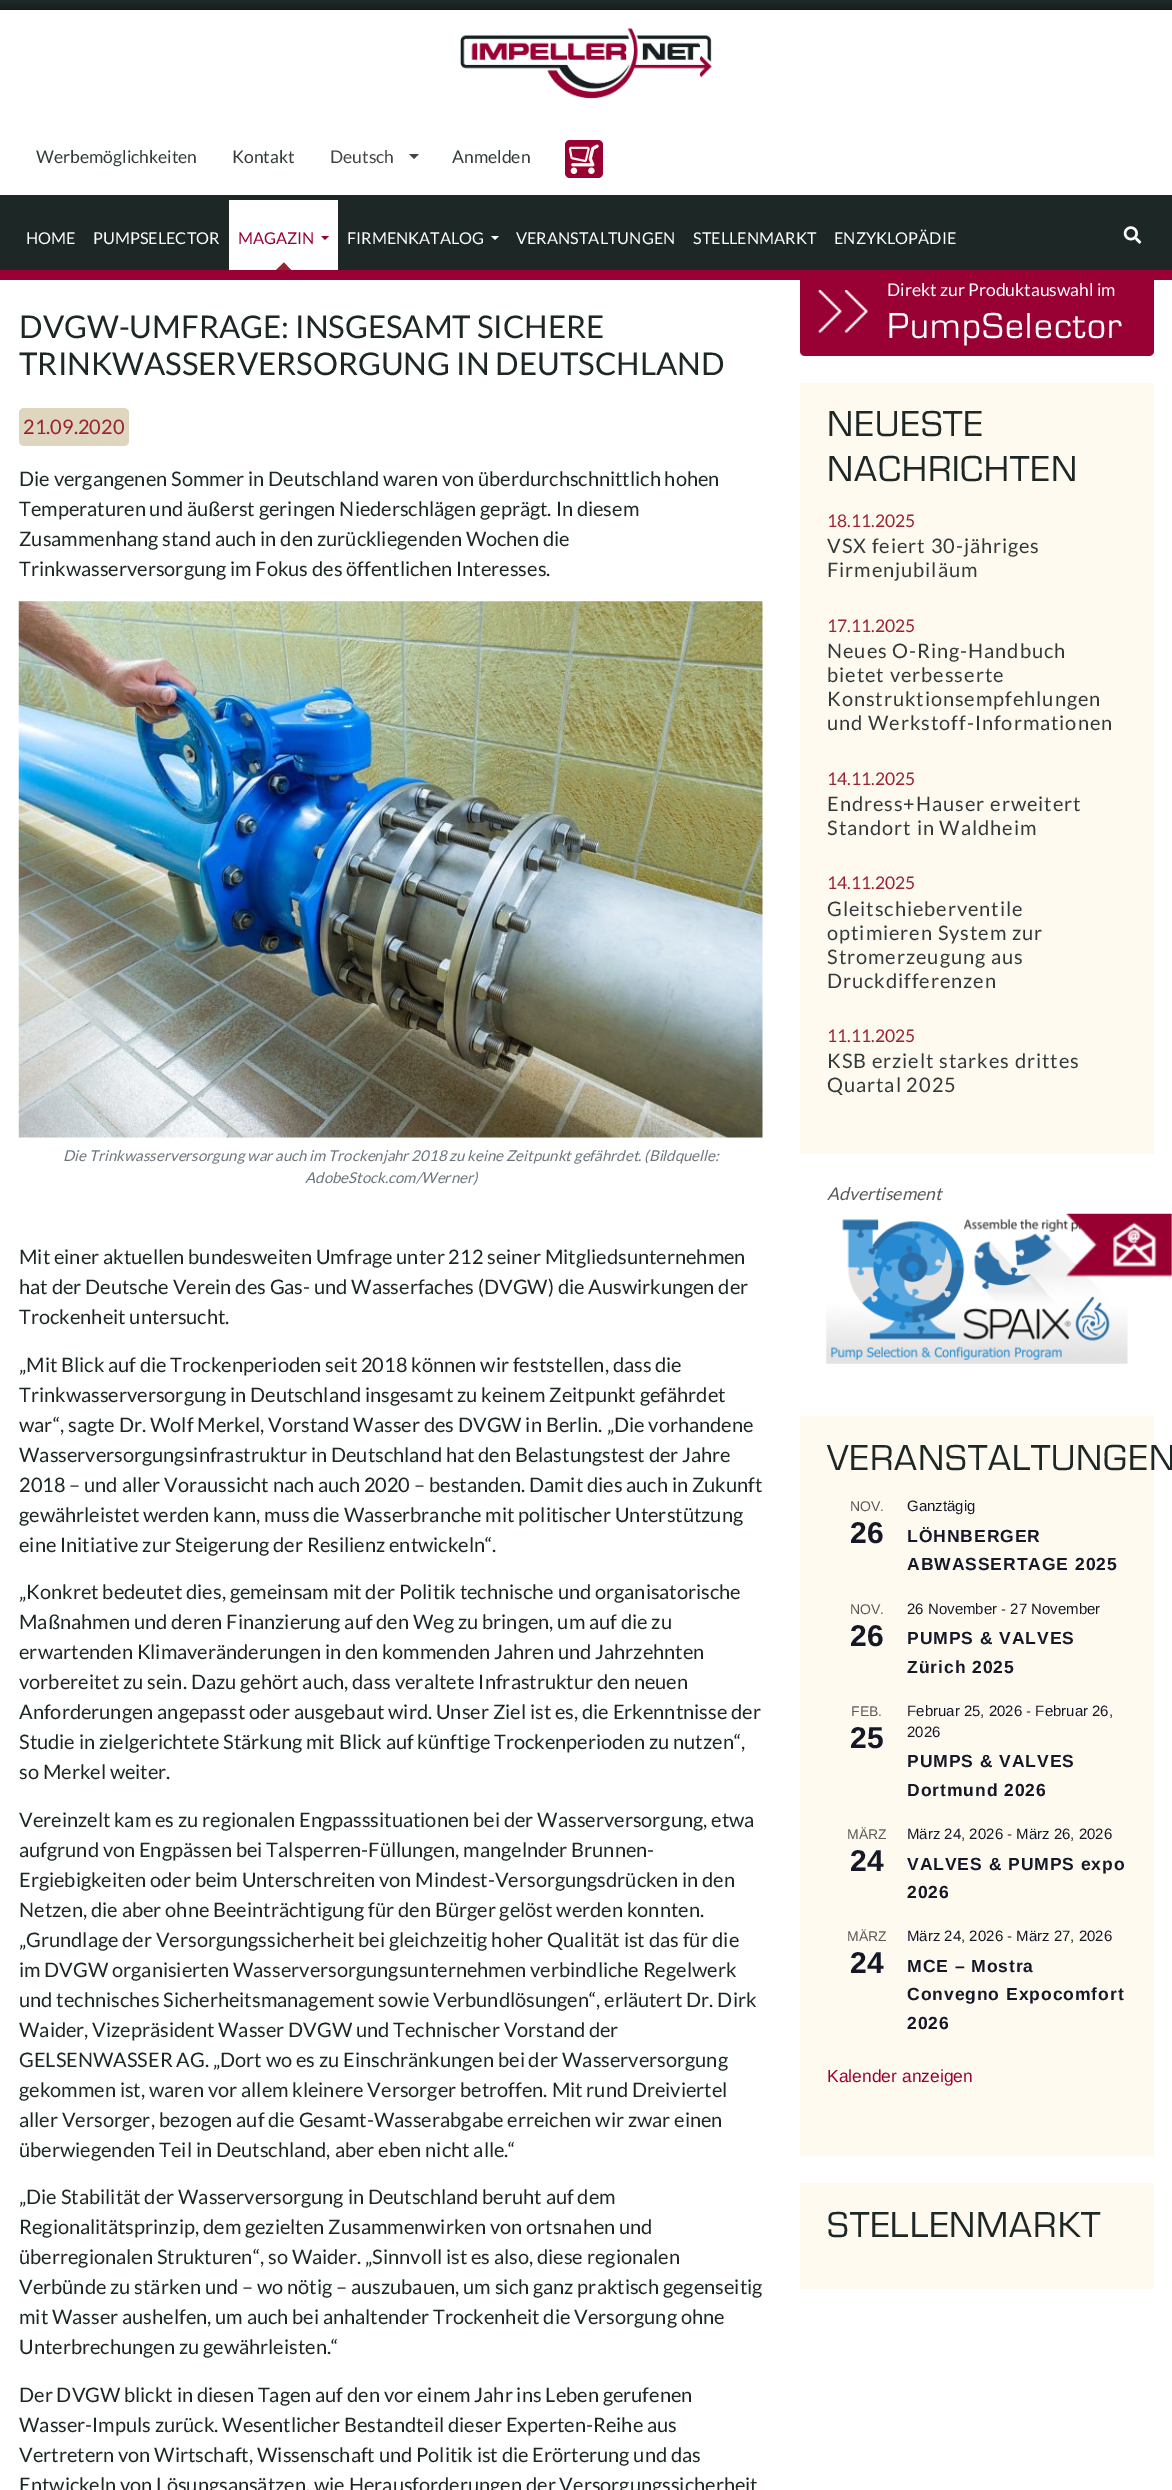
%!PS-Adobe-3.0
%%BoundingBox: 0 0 1172 2490
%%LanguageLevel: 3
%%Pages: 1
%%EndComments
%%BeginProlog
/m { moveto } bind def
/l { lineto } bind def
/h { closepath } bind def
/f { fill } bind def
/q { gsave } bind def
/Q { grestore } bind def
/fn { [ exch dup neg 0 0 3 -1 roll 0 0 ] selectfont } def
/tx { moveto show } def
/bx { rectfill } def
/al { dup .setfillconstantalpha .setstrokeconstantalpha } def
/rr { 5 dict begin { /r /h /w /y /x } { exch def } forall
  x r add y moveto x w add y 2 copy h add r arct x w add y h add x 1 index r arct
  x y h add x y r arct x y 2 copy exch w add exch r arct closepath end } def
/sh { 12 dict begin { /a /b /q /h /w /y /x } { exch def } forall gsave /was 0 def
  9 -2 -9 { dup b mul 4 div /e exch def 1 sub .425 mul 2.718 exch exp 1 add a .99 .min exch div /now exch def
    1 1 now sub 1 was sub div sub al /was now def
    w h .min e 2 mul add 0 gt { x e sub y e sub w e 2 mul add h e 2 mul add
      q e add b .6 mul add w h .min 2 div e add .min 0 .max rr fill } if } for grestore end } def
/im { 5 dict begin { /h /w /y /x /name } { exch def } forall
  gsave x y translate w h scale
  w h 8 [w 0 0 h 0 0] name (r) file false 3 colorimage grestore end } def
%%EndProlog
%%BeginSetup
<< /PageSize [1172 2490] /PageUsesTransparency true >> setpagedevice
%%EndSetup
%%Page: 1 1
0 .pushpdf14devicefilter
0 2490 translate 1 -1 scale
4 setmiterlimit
1 setgray
0 0 1172 2490 bx
0.114 0.153 0.149 setrgbcolor
0 0 1172 10 bx
q
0 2 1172 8 rectclip
0 setgray
0 10 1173 185 0 4.5 0.5 sh
Q
(image0.raw) 460 28 252 71 im
/Lato-Regular 17.5 fn
0.2 0.227 0.231 setrgbcolor
(Werbemöglichkeiten) 36 163 tx
(Kontakt) 232 163 tx
0.267 setgray
(Deutsch) 330 163 tx
409 154 m 419 154 l 414 159 l h f
0.2 0.227 0.231 setrgbcolor
(Anmelden) 452 163 tx
0.6 0 0.2 setrgbcolor
565 140 38 38 5 rr f
(image1.raw) 568 144 31 30 im
800 268 354 88 5 rr f
0.114 0.153 0.149 setrgbcolor
0 195 1172 75 bx
/Lato-Regular 16.25 fn
1 setgray
(HOME) 26 244 tx
(PUMPSELECTOR) 93 244 tx
229 200 109 70 bx
0.6 0 0.2 setrgbcolor
(MAGAZIN) 238 244 tx
321 236 m 329 236 l 325 240 l h f
0.6 0.137 0.2 setrgbcolor
291 270 m 276 270 l 284 262.5 l h f
1 setgray
(FIRMENKATALOG) 347 244 tx
0.996 setgray
491 236 m 499 236 l 495 240 l h f
1 setgray
(VERANSTALTUNGEN) 516 244 tx
(STELLENMARKT) 693 244 tx
(ENZYKLOPÄDIE) 834 244 tx
(image2.raw) 1123 226 19 18 im
0.6 0 0.2 setrgbcolor
0 270 1172 10 bx
(image6.raw) 826 1219 302 145 im
(image3.raw) 1066 1213 106 64 im
/Lato-Regular 31.25 fn
0.114 0.153 0.149 setrgbcolor
(DVGW-UMFRAGE: INSGESAMT SICHERE) 19 338 tx
(TRINKWASSERVERSORGUNG IN DEUTSCHLAND) 19 375 tx
0.875 0.839 0.753 setrgbcolor
19 408 110 38 5 rr f
/Lato-Regular 20 fn
0.6 0.137 0.2 setrgbcolor
(21.09.2020) 23 434 tx
0.114 0.153 0.149 setrgbcolor
(Die vergangenen Sommer in Deutschland waren von überdurchschnittlich hohen) 19 486 tx
(Temperaturen und äußerst geringen Niederschlägen geprägt. In diesem) 19 516 tx
(Zusammenhang stand auch in den zurückliegenden Wochen die) 19 546 tx
(Trinkwasserversorgung im Fokus des öffentlichen Interesses.) 19 576 tx
(image4.raw) 18 601 745 537 im
/Lato-Italic 15 fn
0.424 0.459 0.49 setrgbcolor
(Die Trinkwasserversorgung war auch im Trockenjahr 2018 zu keine Zeitpunkt gefährdet. \(Bildquelle:) 63 1161 tx
(AdobeStock.com/Werner\)) 305 1183 tx
/Lato-Regular 20 fn
0.114 0.153 0.149 setrgbcolor
(Mit einer aktuellen bundesweiten Umfrage unter 212 seiner Mitgliedsunternehmen) 19 1264 tx
(hat der Deutsche Verein des Gas- und Wasserfaches \(DVGW\) die Auswirkungen der) 19 1294 tx
(Trockenheit untersucht.) 19 1324 tx
(„Mit Blick auf die Trockenperioden seit 2018 können wir feststellen, dass die) 19 1372 tx
(Trinkwasserversorgung in Deutschland insgesamt zu keinem Zeitpunkt gefährdet) 19 1402 tx
(war“, sagte Dr. Wolf Merkel, Vorstand Wasser des DVGW in Berlin. „Die vorhandene) 19 1432 tx
(Wasserversorgungsinfrastruktur in Deutschland hat den Belastungstest der Jahre) 19 1462 tx
(2018 – und aller Voraussicht nach auch 2020 – bestanden. Damit dies auch in Zukunft) 19 1492 tx
(gewährleistet werden kann, muss die Wasserbranche mit politischer Unterstützung) 19 1522 tx
(eine Initiative zur Steigerung der Resilienz entwickeln“.) 19 1552 tx
(„Konkret bedeutet dies, gemeinsam mit der Politik technische und organisatorische) 19 1599 tx
(Maßnahmen und deren Finanzierung auf den Weg zu bringen, um auf die zu) 19 1629 tx
(erwartenden Klimaveränderungen in den kommenden Jahren und Jahrzehnten) 19 1659 tx
(vorbereitet zu sein. Dazu gehört auch, dass veraltete Infrastruktur den neuen) 19 1689 tx
(Anforderungen angepasst oder ausgebaut wird. Unser Ziel ist es, die Erkenntnisse der) 19 1719 tx
(Studie in zielgerichtete Stärkung mit Blick auf künftige Trockenperioden zu nutzen“,) 19 1749 tx
(so Merkel weiter.) 19 1779 tx
(Vereinzelt kam es zu regionalen Engpasssituationen bei der Wasserversorgung, etwa) 19 1827 tx
(aufgrund von Engpässen bei Talsperren-Füllungen, mangelnder Brunnen-) 19 1857 tx
(Ergiebigkeiten oder beim Unterschreiten von Mindest-Versorgungsdrücken in den) 19 1887 tx
(Netzen, die aber ohne Beeinträchtigung für den Bürger gelöst werden konnten.) 19 1917 tx
(„Grundlage der Versorgungssicherheit bei gleichzeitig hoher Qualität ist das für die) 19 1947 tx
(im DVGW organisierten Wasserversorgungsunternehmen verbindliche Regelwerk) 19 1977 tx
(und technisches Sicherheitsmanagement sowie Verbundlösungen“, erläutert Dr. Dirk) 19 2007 tx
(Waider, Vizepräsident Wasser DVGW und Technischer Vorstand der) 19 2037 tx
(GELSENWASSER AG. „Dort wo es zu Einschränkungen bei der Wasserversorgung) 19 2067 tx
(gekommen ist, waren vor allem kleinere Versorger betroffen. Mit rund Dreiviertel) 19 2097 tx
(aller Versorger, bezogen auf die Gesamt-Wasserabgabe erreichen wir zwar einen) 19 2127 tx
(überwiegenden Teil in Deutschland, aber eben nicht alle.“) 19 2157 tx
(„Die Stabilität der Wasserversorgung in Deutschland beruht auf dem) 19 2204 tx
(Regionalitätsprinzip, dem gezielten Zusammenwirken von ortsnahen und) 19 2234 tx
(überregionalen Strukturen“, so Waider. „Sinnvoll ist es also, diese regionalen) 19 2264 tx
(Verbünde zu stärken und – wo nötig – auszubauen, um sich ganz praktisch gegenseitig) 19 2294 tx
(mit Wasser aushelfen, um auch bei anhaltender Trockenheit die Versorgung ohne) 19 2324 tx
(Unterbrechungen zu gewährleisten.“) 19 2354 tx
(Der DVGW blickt in diesen Tagen auf den vor einem Jahr ins Leben gerufenen) 19 2402 tx
(Wasser-Impuls zurück. Wesentlicher Bestandteil dieser Experten-Reihe aus) 19 2432 tx
(Vertretern von Wirtschaft, Wissenschaft und Politik ist die Erörterung und das) 19 2462 tx
(Entwickeln von Lösungsansätzen, wie Herausforderungen der Versorgungssicherheit) 19 2492 tx
(image5.raw) 818 290 50 43 im
/Lato-Regular 17.5 fn
1 setgray
(Direkt zur Produktauswahl im) 887 296 tx
/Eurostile-Regular 37.5 fn
887 338 m 1.25 0 (PumpSelector) ashow
1 0.98 0.941 setrgbcolor
800 383 354 771 bx
0.114 0.153 0.149 setrgbcolor
827 436 m 0.95 0 (NEUESTE) ashow
827 481 m 0.95 0 (NACHRICHTEN) ashow
/Lato-Regular 17.5 fn
0.6 0.137 0.2 setrgbcolor
(18.11.2025) 827 527 tx
/Lato-Regular 20 fn
0.2 0.227 0.231 setrgbcolor
827 553 m 0.95 0 (VSX feiert 30-jähriges) ashow
827 577 m 0.95 0 (Firmenjubiläum) ashow
/Lato-Regular 17.5 fn
0.6 0.137 0.2 setrgbcolor
(17.11.2025) 827 632 tx
/Lato-Regular 20 fn
0.2 0.227 0.231 setrgbcolor
827 658 m 0.95 0 (Neues O-Ring-Handbuch) ashow
827 682 m 0.95 0 (bietet verbesserte) ashow
827 706 m 0.95 0 (Konstruktionsempfehlungen) ashow
827 730 m 0.95 0 (und Werkstoff-Informationen) ashow
/Lato-Regular 17.5 fn
0.6 0.137 0.2 setrgbcolor
(14.11.2025) 827 785 tx
/Lato-Regular 20 fn
0.2 0.227 0.231 setrgbcolor
827 811 m 0.95 0 (Endress+Hauser erweitert) ashow
827 835 m 0.95 0 (Standort in Waldheim) ashow
/Lato-Regular 17.5 fn
0.6 0.137 0.2 setrgbcolor
(14.11.2025) 827 889 tx
/Lato-Regular 20 fn
0.2 0.227 0.231 setrgbcolor
827 916 m 0.95 0 (Gleitschieberventile) ashow
827 940 m 0.95 0 (optimieren System zur) ashow
827 964 m 0.95 0 (Stromerzeugung aus) ashow
827 988 m 0.95 0 (Druckdifferenzen) ashow
/Lato-Regular 17.5 fn
0.6 0.137 0.2 setrgbcolor
(11.11.2025) 827 1042 tx
/Lato-Regular 20 fn
0.2 0.227 0.231 setrgbcolor
827 1068 m 0.95 0 (KSB erzielt starkes drittes) ashow
827 1092 m 0.95 0 (Quartal 2025) ashow
/Lato-Italic 17.5 fn
0.349 setgray
(Advertisement) 827 1200 tx
1 0.98 0.941 setrgbcolor
800 1416 354 740 bx
/Eurostile-Regular 37.5 fn
0.114 0.153 0.149 setrgbcolor
827 1470 m 0.95 0 (VERANSTALTUNGEN) ashow
/LiberationSans-Regular 14 fn
0.349 setgray
(NOV.) 850 1511 tx
/LiberationSans-Bold 30 fn
0.078 0.094 0.153 setrgbcolor
(26) 850 1543 tx
/LiberationSans-Regular 15 fn
(Ganztägig) 907 1511 tx
/LiberationSans-Bold 17.5 fn
907 1542 m 0.95 0 (LÖHNBERGER) ashow
907 1570 m 0.95 0 (ABWASSERTAGE 2025) ashow
/LiberationSans-Regular 14 fn
0.349 setgray
(NOV.) 850 1614 tx
/LiberationSans-Bold 30 fn
0.078 0.094 0.153 setrgbcolor
(26) 850 1646 tx
/LiberationSans-Regular 15 fn
(26 November - 27 November) 907 1614 tx
/LiberationSans-Bold 17.5 fn
907 1644 m 0.95 0 (PUMPS & VALVES) ashow
907 1673 m 0.95 0 (Zürich 2025) ashow
/LiberationSans-Regular 14 fn
0.349 setgray
(FEB.) 851 1716 tx
/LiberationSans-Bold 30 fn
0.078 0.094 0.153 setrgbcolor
(25) 850 1748 tx
/LiberationSans-Regular 15 fn
(Februar 25, 2026 - Februar 26,) 907 1716 tx
(2026) 907 1737 tx
/LiberationSans-Bold 17.5 fn
907 1767 m 0.95 0 (PUMPS & VALVES) ashow
907 1796 m 0.95 0 (Dortmund 2026) ashow
/LiberationSans-Regular 14 fn
0.349 setgray
(MÄRZ) 847 1839 tx
/LiberationSans-Bold 30 fn
0.078 0.094 0.153 setrgbcolor
(24) 850 1871 tx
/LiberationSans-Regular 15 fn
(März 24, 2026 - März 26, 2026) 907 1839 tx
/LiberationSans-Bold 17.5 fn
907 1870 m 0.95 0 (VALVES & PUMPS expo) ashow
907 1898 m 0.95 0 (2026) ashow
/LiberationSans-Regular 14 fn
0.349 setgray
(MÄRZ) 847 1941 tx
/LiberationSans-Bold 30 fn
0.078 0.094 0.153 setrgbcolor
(24) 850 1973 tx
/LiberationSans-Regular 15 fn
(März 24, 2026 - März 27, 2026) 907 1941 tx
/LiberationSans-Bold 17.5 fn
907 1972 m 0.95 0 (MCE – Mostra) ashow
907 2000 m 0.95 0 (Convegno Expocomfort) ashow
907 2029 m 0.95 0 (2026) ashow
/LiberationSans-Regular 17.5 fn
0.6 0 0.2 setrgbcolor
(Kalender anzeigen) 827 2082 tx
1 0.98 0.941 setrgbcolor
800 2183 354 106 bx
/Eurostile-Regular 37.5 fn
0.114 0.153 0.149 setrgbcolor
827 2237 m 0.95 0 (STELLENMARKT) ashow
.poppdf14devicefilter showpage
%%EOF
